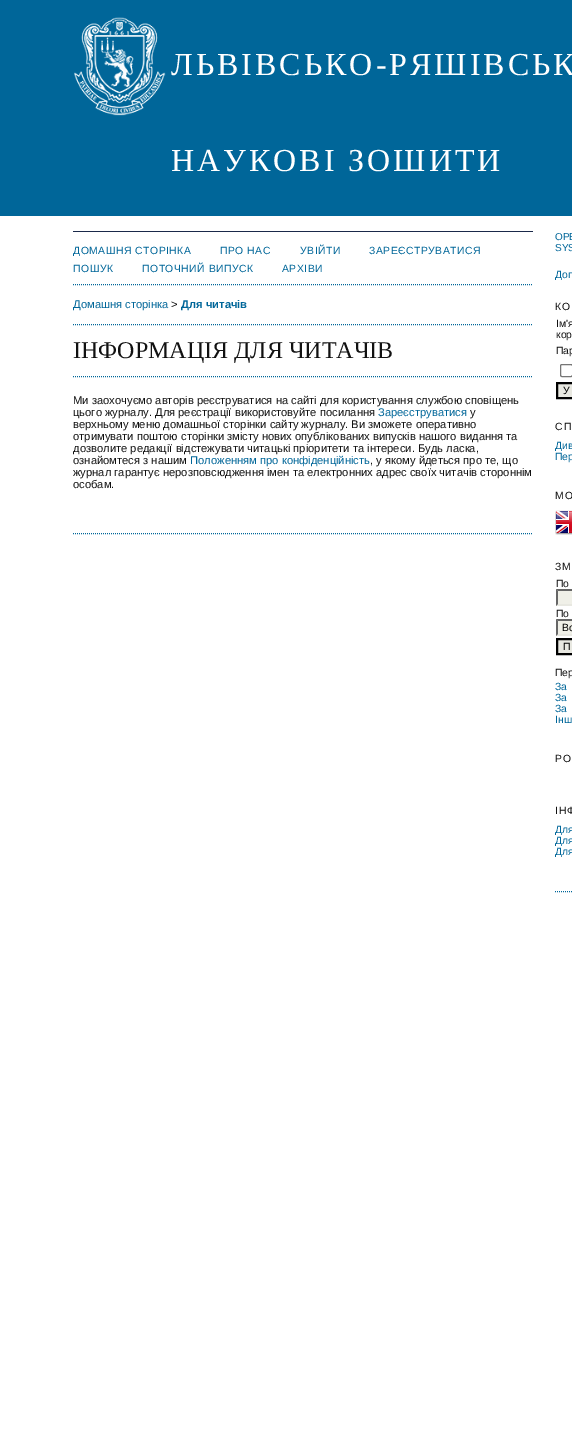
%!PS-Adobe-3.0
%%BoundingBox: 0 0 572 1441
%%LanguageLevel: 3
%%Pages: 1
%%EndComments
%%BeginProlog
/m { moveto } bind def
/l { lineto } bind def
/h { closepath } bind def
/f { fill } bind def
/S { stroke } bind def
/q { gsave } bind def
/Q { grestore } bind def
/w { setlinewidth } bind def
/fn { [ exch dup neg 0 0 3 -1 roll 0 0 ] selectfont } def
/tx { moveto show } def
/bx { rectfill } def
/rr { 5 dict begin { /r /h /w /y /x } { exch def } forall
  x r add y moveto x w add y 2 copy h add r arct x w add y h add x 1 index r arct
  x y h add x y r arct x y 2 copy exch w add exch r arct closepath end } def
/im { 5 dict begin { /h /w /y /x /name } { exch def } forall
  gsave x y translate w h scale
  w h 8 [w 0 0 h 0 0] name (r) file false 3 colorimage grestore end } def
%%EndProlog
%%BeginSetup
<< /PageSize [572 1441] >> setpagedevice
%%EndSetup
%%Page: 1 1
0 1441 translate 1 -1 scale
4 setmiterlimit
1 setgray
0 0 572 1441 bx
0 0.4 0.6 setrgbcolor
0 0 572 216 bx
(image0.raw) 74 17 92 99 im
/LiberationSerif-Regular 32 fn
1 setgray
171 75 m 3 0 (ЛЬВІВСЬКО-РЯШІВСЬК) ashow
171 171 m 3 0 (НАУКОВІ ЗОШИТИ) ashow
0.102 0.161 0.29 setrgbcolor
73 231 460 1 bx
0 0.4 0.6 setrgbcolor
[1 1] 0 setdash
73 533.5 m 533 533.5 l S
73 284.5 m 533 284.5 l S
/LiberationSans-Regular 10.4 fn
73 254 m 0.5 0 (ДОМАШНЯ СТОРІНКА) ashow
220 254 m 0.5 0 (ПРО НАС) ashow
300 254 m 0.5 0 (УВІЙТИ) ashow
369 254 m 0.5 0 (ЗАРЕЄСТРУВАТИСЯ) ashow
73 272 m 0.5 0 (ПОШУК) ashow
142 272 m 0.5 0 (ПОТОЧНИЙ ВИПУСК) ashow
282 272 m 0.5 0 (АРХІВИ) ashow
73 324.5 m 533 324.5 l S
/LiberationSans-Regular 11.2 fn
(Домашня сторінка) 73 308 tx
0.067 setgray
(>) 171 308 tx
/LiberationSans-Bold 11.2 fn
0 0.4 0.6 setrgbcolor
(Для читачів) 181 308 tx
/LiberationSerif-Regular 24 fn
0.067 setgray
(ІНФОРМАЦІЯ ДЛЯ ЧИТАЧІВ) 73 358 tx
0 0.4 0.6 setrgbcolor
73 376.5 m 533 376.5 l S
/LiberationSans-Regular 11.2 fn
0.067 setgray
(Ми заохочуємо авторів реєструватися на сайті для користування службою сповіщень) 73 404 tx
(цього журналу. Для реєстрації використовуйте посилання) 73 416 tx
0 0.4 0.6 setrgbcolor
(Зареєструватися) 378 416 tx
0.067 setgray
(у) 470 416 tx
(верхньому меню домашньої сторінки сайту журналу. Ви зможете оперативно) 73 428 tx
(отримувати поштою сторінки змісту нових опублікованих випусків нашого видання та) 73 440 tx
(дозволите редакції відстежувати читацькі пріоритети та інтереси. Будь ласка,) 73 452 tx
(ознайомтеся з нашим) 73 464 tx
0 0.4 0.6 setrgbcolor
(Положенням про конфіденційність) 190 464 tx
0.067 setgray
(, у якому йдеться про те, що) 370 464 tx
(журнал гарантує нерозповсюдження імен та електронних адрес своїх читачів стороннім) 73 476 tx
(особам.) 73 488 tx
0 0.4 0.6 setrgbcolor
555 891.5 m 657 891.5 l S
/LiberationSans-Regular 10 fn
(OPE) 555 240 tx
(SYS) 555 251 tx
/LiberationSans-Regular 10.4 fn
(Доп) 555 278 tx
0.067 setgray
555 310 m 1 0 (КО) ashow
(Ім'я) 556 327 tx
(кор) 556 338 tx
(Пар) 556 354 tx
0.463 setgray
[] 0 setdash
560.5 364.5 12 12 1.5 rr S
0.91 0.91 0.882 setrgbcolor
557 383 m 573 383 l 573 398 l 557 398 l h q f Q
0 setgray
2 w
S
(У) 563 394 tx
0.067 setgray
555 430 m 1 0 (СП) ashow
0 0.4 0.6 setrgbcolor
(Див) 555 449 tx
(Пер) 555 460 tx
0.067 setgray
555 499 m 1 0 (МО) ashow
(image1.raw) 555 510 17 25 im
555 570 m 1 0 (ЗМ) ashow
(По) 556 587 tx
0.941 0.941 0.91 setrgbcolor
556 589 16 17 bx
0.4 setgray
556 589 m 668 589 l 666 591 l 558 591 l h f
0.91 0.91 0.882 setrgbcolor
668 606 m 556 606 l 558 604 l 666 604 l h f
0.4 setgray
556 606 m 556 589 l 558 591 l 558 604 l h f
0.067 setgray
(По) 556 617 tx
0.941 0.941 0.91 setrgbcolor
556 619 16 17 bx
0.4 setgray
556 619 m 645 619 l 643 621 l 558 621 l h f
0.91 0.91 0.882 setrgbcolor
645 636 m 556 636 l 558 634 l 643 634 l h f
0.4 setgray
556 636 m 556 619 l 558 621 l 558 634 l h f
0 setgray
(Вс) 562 631 tx
0.91 0.91 0.882 setrgbcolor
557 639 m 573 639 l 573 654 l 557 654 l h q f Q
0 setgray
S
(П) 563 650 tx
0.067 setgray
(Пер) 555 676 tx
0 0.4 0.6 setrgbcolor
(За) 555 690 tx
(За) 555 701 tx
(За) 555 712 tx
(Інш) 555 723 tx
0.067 setgray
555 762 m 1 0 (РО) ashow
555 814 m 1 0 (ІНФ) ashow
0 0.4 0.6 setrgbcolor
(Для) 555 833 tx
(Для) 555 844 tx
(Для) 555 855 tx
showpage
%%EOF
